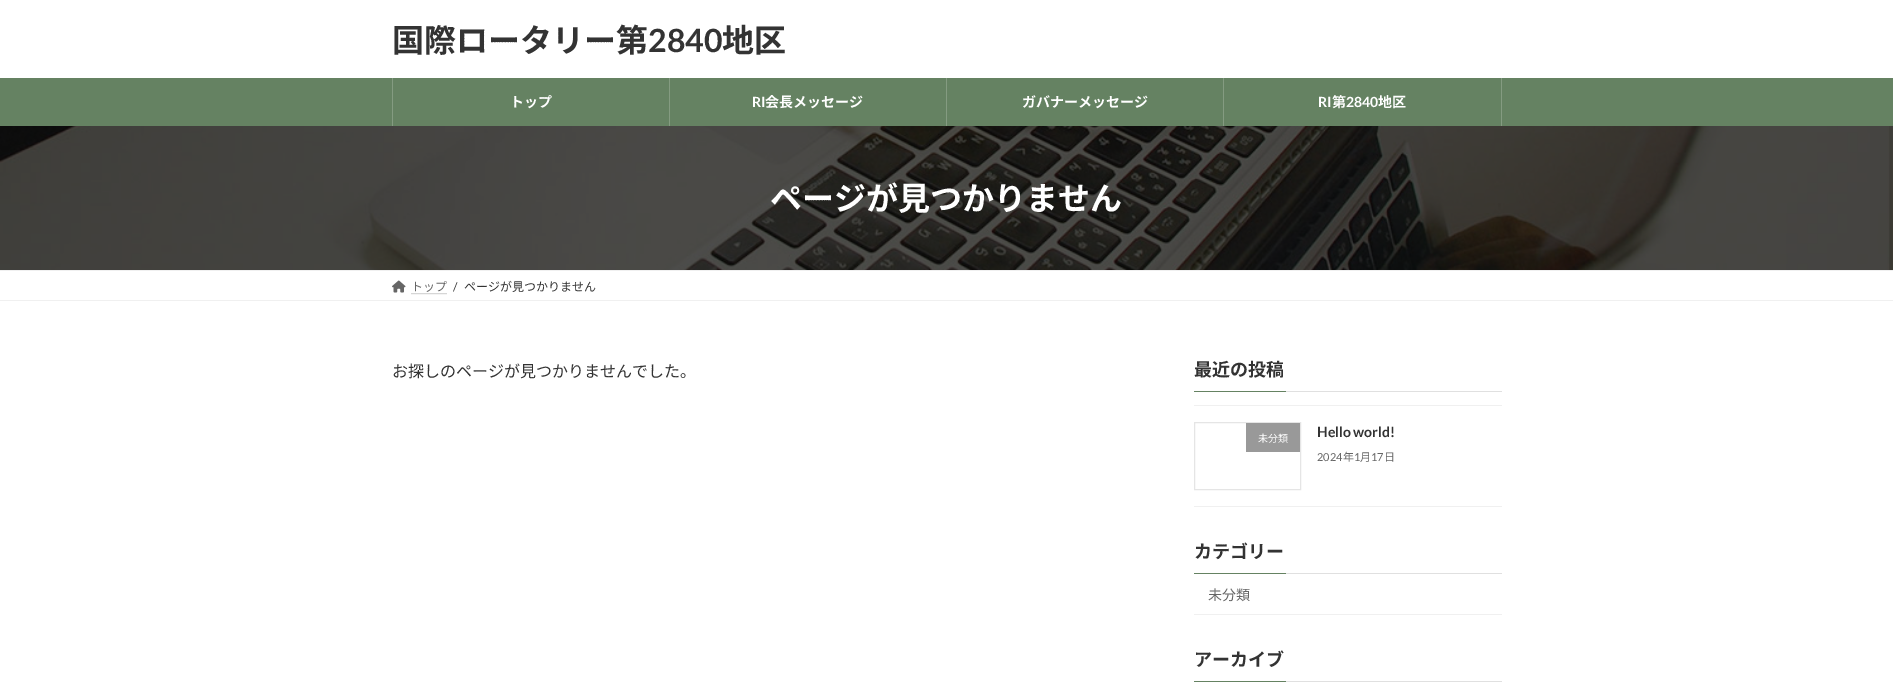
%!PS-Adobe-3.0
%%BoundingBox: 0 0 1893 685
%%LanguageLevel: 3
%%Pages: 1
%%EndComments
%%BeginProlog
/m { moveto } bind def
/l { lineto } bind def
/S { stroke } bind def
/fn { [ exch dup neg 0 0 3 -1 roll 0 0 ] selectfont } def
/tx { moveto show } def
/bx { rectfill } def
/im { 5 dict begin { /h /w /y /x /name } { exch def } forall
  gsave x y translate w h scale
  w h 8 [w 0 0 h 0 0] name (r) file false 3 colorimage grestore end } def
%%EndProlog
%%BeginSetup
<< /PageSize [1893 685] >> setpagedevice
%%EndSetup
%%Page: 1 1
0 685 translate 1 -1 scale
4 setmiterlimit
1 setgray
0 0 1893 685 bx
/NotoSansJP-Bold 32 fn
0.2 setgray
(国際ロータリー第) 392 52 tx
/Lato-Bold 32 fn
(2840) 648 52 tx
/NotoSansJP-Bold 32 fn
(地区) 722 52 tx
0.396 0.51 0.384 setrgbcolor
0 78 1893 48 bx
0.518 0.608 0.506 setrgbcolor
669 78 1 48 bx
392 78 1 48 bx
/NotoSansJP-Bold 14 fn
1 setgray
(トップ) 510 107 tx
0.518 0.608 0.506 setrgbcolor
946 78 1 48 bx
/Lato-Bold 14 fn
1 setgray
(RI) 752 107 tx
/NotoSansJP-Bold 14 fn
(会長メッセージ) 765 107 tx
0.518 0.608 0.506 setrgbcolor
1223 78 1 48 bx
1 setgray
(ガバナーメッセージ) 1022 107 tx
0.518 0.608 0.506 setrgbcolor
1501 78 1 48 bx
/Lato-Bold 14 fn
1 setgray
(RI) 1318 107 tx
/NotoSansJP-Bold 14 fn
(第) 1332 107 tx
/Lato-Bold 14 fn
(2840) 1346 107 tx
/NotoSansJP-Bold 14 fn
(地区) 1378 107 tx
(image0.raw) 0 126 1893 144 im
/NotoSansJP-Bold 32 fn
(ページが見つかりません) 770 210 tx
0.941 setgray
0 270 1893 1 bx
0 300 1893 1 bx
(image1.raw) 392 280 14 13 im
/NotoSansJP-Regular 12 fn
0.4 setgray
(トップ) 411 291 tx
0.702 setgray
[1 1] 0 setdash
411.5 293.5 m 447.5 293.5 l S
/Lato-Regular 12 fn
0.2 setgray
(/) 453 291 tx
/NotoSansJP-Regular 12 fn
(ページが見つかりません) 464 291 tx
/NotoSansJP-Regular 16 fn
(お探しのページが見つかりませんでした。) 392 377 tx
0.878 setgray
1286 391 216 1 bx
/NotoSansJP-Bold 18 fn
0.2 setgray
(最近の投稿) 1194 376 tx
0.396 0.51 0.384 setrgbcolor
1194 391 92 1 bx
0.941 setgray
1194 405 308 1 bx
1194 506 308 1 bx
0.898 setgray
[] 0 setdash
1194.5 422.5 106 67 rectstroke
0.6 setgray
1246 423 54 29 bx
/NotoSansJP-Regular 10 fn
1 setgray
(未分類) 1258 442 tx
/Lato-Bold 14 fn
0.2 setgray
(Hello world!) 1317 437 tx
/Lato-Regular 11 fn
0.4 setgray
(2024) 1317 461 tx
/NotoSansJP-Regular 11 fn
(年) 1343 461 tx
/Lato-Regular 11 fn
(1) 1354 461 tx
/NotoSansJP-Regular 11 fn
(月) 1360 461 tx
/Lato-Regular 11 fn
(17) 1371 461 tx
/NotoSansJP-Regular 11 fn
(日) 1384 461 tx
0.878 setgray
1286 573 216 1 bx
/NotoSansJP-Bold 18 fn
0.2 setgray
(カテゴリー) 1194 558 tx
0.396 0.51 0.384 setrgbcolor
1194 573 92 1 bx
0.941 setgray
1194 614 308 1 bx
/NotoSansJP-Regular 14 fn
0.4 setgray
(未分類) 1208 600 tx
0.878 setgray
1286 681 216 1 bx
/NotoSansJP-Bold 18 fn
0.2 setgray
(アーカイブ) 1194 666 tx
0.396 0.51 0.384 setrgbcolor
1194 681 92 1 bx
showpage
%%EOF
